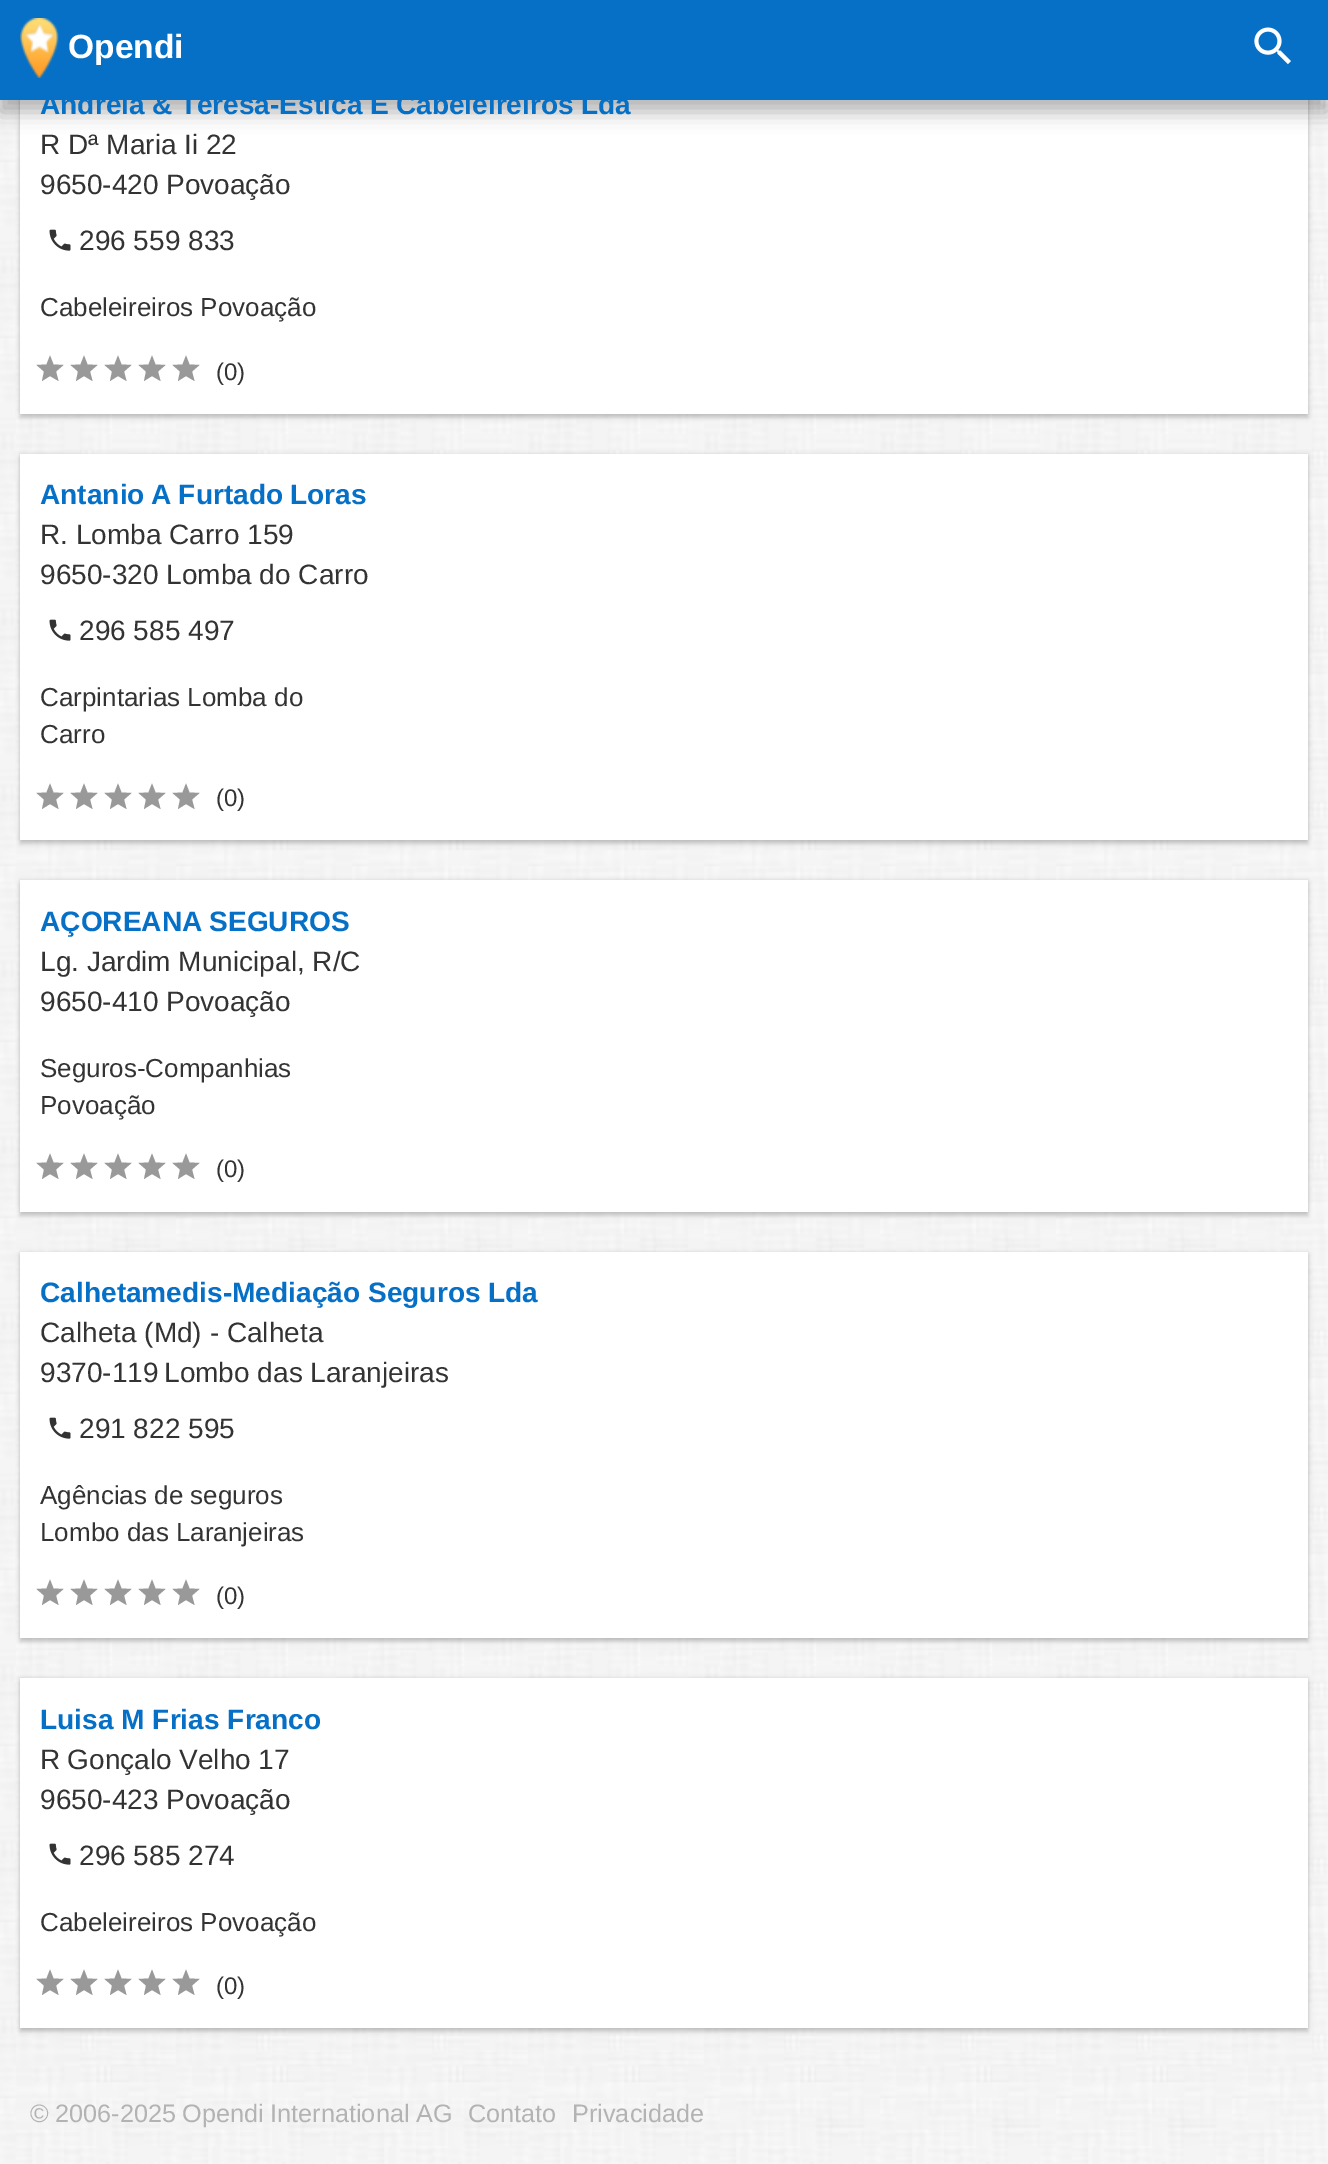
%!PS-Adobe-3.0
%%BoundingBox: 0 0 1328 2164
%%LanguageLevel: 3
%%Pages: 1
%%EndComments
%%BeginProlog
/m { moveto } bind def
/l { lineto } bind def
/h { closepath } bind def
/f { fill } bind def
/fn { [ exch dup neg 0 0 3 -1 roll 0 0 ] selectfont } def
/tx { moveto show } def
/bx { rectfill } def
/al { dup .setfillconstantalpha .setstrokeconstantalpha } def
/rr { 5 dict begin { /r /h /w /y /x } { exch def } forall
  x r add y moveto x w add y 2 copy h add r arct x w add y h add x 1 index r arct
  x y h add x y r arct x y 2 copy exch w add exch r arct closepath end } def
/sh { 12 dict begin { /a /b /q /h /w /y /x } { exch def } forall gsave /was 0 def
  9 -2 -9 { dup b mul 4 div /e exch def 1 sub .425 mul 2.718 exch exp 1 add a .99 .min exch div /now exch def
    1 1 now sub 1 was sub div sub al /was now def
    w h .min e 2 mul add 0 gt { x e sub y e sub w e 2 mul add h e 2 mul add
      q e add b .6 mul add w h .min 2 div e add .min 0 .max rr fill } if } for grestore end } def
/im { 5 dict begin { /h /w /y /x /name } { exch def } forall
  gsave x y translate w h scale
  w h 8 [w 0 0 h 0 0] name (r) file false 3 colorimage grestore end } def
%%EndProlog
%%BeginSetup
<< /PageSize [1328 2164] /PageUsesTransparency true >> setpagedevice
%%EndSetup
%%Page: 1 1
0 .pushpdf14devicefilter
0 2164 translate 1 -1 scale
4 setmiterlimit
1 setgray
0 0 1328 2164 bx
(image0.raw) 0 100 1328 2064 im
0 setgray
20 64 1288 350 0 2 0.12 sh
20 68 1288 350 0 2 0.16 sh
1 setgray
20 100 1288 314 bx
0 setgray
0 12 1328 100 0 10 0.3 sh
0.024 0.439 0.776 setrgbcolor
0 0 1328 100 bx
(image1.raw) 20 18 39 60 im
/LiberationSans-Bold 33.5 fn
1 setgray
(Opendi) 68 58 tx
(image2.raw) 1254 27 37 38 im
/LiberationSans-Bold 28.1 fn
0.024 0.439 0.776 setrgbcolor
40 114 m -0.5 0 32 (Andreia & Teresa-Estica E Cabeleireiros Lda) widthshow
/LiberationSans-Regular 28 fn
0.2 setgray
(R Dª Maria Ii 22) 40 154 tx
(9650-420 Povoação) 40 194 tx
(image3.raw) 49 229 22 22 im
(296 559 833) 79 250 tx
/LiberationSans-Regular 26 fn
(Cabeleireiros Povoação) 40 316 tx
0.6 setgray
50 376 m 58.5 381 l 56 371.5 l 63.5 365 l 53.5 364.5 l 50 355.5 l 46.5 364.5 l 36.5 365 l 44 371.5 l 42 381 l h 84 376 m 92.5 381 l 90 371.5 l 97.5 365 l 87.5 364.5 l 84 355.5 l 80.5 364.5 l 70.5 365 l 78 371.5 l 76 381 l h f
118 376 m 126.5 381 l 124 371.5 l 131.5 365 l 121.5 364.5 l 118 355.5 l 114.5 364.5 l 104.5 365 l 112 371.5 l 110 381 l h 152 376 m 160.5 381 l 158 371.5 l 165.5 365 l 155.5 364.5 l 152 355.5 l 148.5 364.5 l 138.5 365 l 146 371.5 l 144 381 l h f
186 376 m 194.5 381 l 192 371.5 l 199.5 365 l 189.5 364.5 l 186 355.5 l 182.5 364.5 l 172.5 365 l 180 371.5 l 178 381 l h f
/LiberationSans-Regular 24 fn
0.2 setgray
(\(0\)) 216 380 tx
0 setgray
20 454 1288 386 0 2 0.12 sh
20 458 1288 386 0 2 0.16 sh
1 setgray
20 454 1288 386 bx
/LiberationSans-Bold 28.1 fn
0.024 0.439 0.776 setrgbcolor
40 504 m -1 0 32 (Antanio A Furtado Loras) widthshow
/LiberationSans-Regular 28 fn
0.2 setgray
(R. Lomba Carro 159) 40 544 tx
(9650-320 Lomba do Carro) 40 584 tx
(image3.raw) 49 619 22 22 im
(296 585 497) 79 640 tx
/LiberationSans-Regular 26 fn
(Carpintarias Lomba do) 40 706 tx
(Carro) 40 743 tx
0.6 setgray
50 804 m 58.5 809 l 56 799.5 l 63.5 793 l 53.5 792.5 l 50 783.5 l 46.5 792.5 l 36.5 793 l 44 799.5 l 42 809 l h 84 804 m 92.5 809 l 90 799.5 l 97.5 793 l 87.5 792.5 l 84 783.5 l 80.5 792.5 l 70.5 793 l 78 799.5 l 76 809 l h f
118 804 m 126.5 809 l 124 799.5 l 131.5 793 l 121.5 792.5 l 118 783.5 l 114.5 792.5 l 104.5 793 l 112 799.5 l 110 809 l h 152 804 m 160.5 809 l 158 799.5 l 165.5 793 l 155.5 792.5 l 152 783.5 l 148.5 792.5 l 138.5 793 l 146 799.5 l 144 809 l h f
186 804 m 194.5 809 l 192 799.5 l 199.5 793 l 189.5 792.5 l 186 783.5 l 182.5 792.5 l 172.5 793 l 180 799.5 l 178 809 l h f
/LiberationSans-Regular 24 fn
0.2 setgray
(\(0\)) 216 806 tx
0 setgray
20 880 1288 332 0 2 0.12 sh
20 884 1288 332 0 2 0.16 sh
1 setgray
20 880 1288 332 bx
/LiberationSans-Bold 28.1 fn
0.024 0.439 0.776 setrgbcolor
40 931 m -1 0 32 (AÇOREANA SEGUROS) widthshow
/LiberationSans-Regular 28 fn
0.2 setgray
(Lg. Jardim Municipal, R/C) 40 971 tx
(9650-410 Povoação) 40 1011 tx
/LiberationSans-Regular 26 fn
(Seguros-Companhias) 40 1077 tx
(Povoação) 40 1114 tx
0.6 setgray
50 1174 m 58.5 1179 l 56 1169.5 l 63.5 1163 l 53.5 1162.5 l 50 1153.5 l 46.5 1162.5 l 36.5 1163 l 44 1169.5 l 42 1179 l h 84 1174 m 92.5 1179 l 90 1169.5 l 97.5 1163 l 87.5 1162.5 l 84 1153.5 l 80.5 1162.5 l 70.5 1163 l 78 1169.5 l 76 1179 l h f
118 1174 m 126.5 1179 l 124 1169.5 l 131.5 1163 l 121.5 1162.5 l 118 1153.5 l 114.5 1162.5 l 104.5 1163 l 112 1169.5 l 110 1179 l h 152 1174 m 160.5 1179 l 158 1169.5 l 165.5 1163 l 155.5 1162.5 l 152 1153.5 l 148.5 1162.5 l 138.5 1163 l 146 1169.5 l 144 1179 l h f
186 1174 m 194.5 1179 l 192 1169.5 l 199.5 1163 l 189.5 1162.5 l 186 1153.5 l 182.5 1162.5 l 172.5 1163 l 180 1169.5 l 178 1179 l h f
/LiberationSans-Regular 24 fn
0.2 setgray
(\(0\)) 216 1177 tx
0 setgray
20 1252 1288 386 0 2 0.12 sh
20 1256 1288 386 0 2 0.16 sh
1 setgray
20 1252 1288 386 bx
/LiberationSans-Bold 28.1 fn
0.024 0.439 0.776 setrgbcolor
(Calhetamedis-Mediação Seguros Lda) 40 1302 tx
/LiberationSans-Regular 28 fn
0.2 setgray
(Calheta \(Md\) - Calheta) 40 1342 tx
(9370-119) 40 1382 tx
(Lombo das Laranjeiras) 164 1382 tx
(image3.raw) 49 1417 22 22 im
(291 822 595) 79 1438 tx
/LiberationSans-Regular 26 fn
(Agências de seguros) 40 1504 tx
(Lombo das Laranjeiras) 40 1541 tx
0.6 setgray
50 1600 m 58.5 1605 l 56 1595.5 l 63.5 1589 l 53.5 1588.5 l 50 1579.5 l 46.5 1588.5 l 36.5 1589 l 44 1595.5 l 42 1605 l h 84 1600 m 92.5 1605 l 90 1595.5 l 97.5 1589 l 87.5 1588.5 l 84 1579.5 l 80.5 1588.5 l 70.5 1589 l 78 1595.5 l 76 1605 l h f
118 1600 m 126.5 1605 l 124 1595.5 l 131.5 1589 l 121.5 1588.5 l 118 1579.5 l 114.5 1588.5 l 104.5 1589 l 112 1595.5 l 110 1605 l h 152 1600 m 160.5 1605 l 158 1595.5 l 165.5 1589 l 155.5 1588.5 l 152 1579.5 l 148.5 1588.5 l 138.5 1589 l 146 1595.5 l 144 1605 l h f
186 1600 m 194.5 1605 l 192 1595.5 l 199.5 1589 l 189.5 1588.5 l 186 1579.5 l 182.5 1588.5 l 172.5 1589 l 180 1595.5 l 178 1605 l h f
/LiberationSans-Regular 24 fn
0.2 setgray
(\(0\)) 216 1604 tx
0 setgray
20 1678 1288 350 0 2 0.12 sh
20 1682 1288 350 0 2 0.16 sh
1 setgray
20 1678 1288 350 bx
/LiberationSans-Bold 28.1 fn
0.024 0.439 0.776 setrgbcolor
(Luisa M Frias Franco) 40 1729 tx
/LiberationSans-Regular 28 fn
0.2 setgray
40 1769 m -0.5 0 32 (R Gonçalo Velho 17) widthshow
(9650-423 Povoação) 40 1809 tx
(image3.raw) 49 1843 22 22 im
(296 585 274) 79 1865 tx
/LiberationSans-Regular 26 fn
(Cabeleireiros Povoação) 40 1931 tx
0.6 setgray
50 1990 m 58.5 1995 l 56 1985.5 l 63.5 1979 l 53.5 1978.5 l 50 1969.5 l 46.5 1978.5 l 36.5 1979 l 44 1985.5 l 42 1995 l h 84 1990 m 92.5 1995 l 90 1985.5 l 97.5 1979 l 87.5 1978.5 l 84 1969.5 l 80.5 1978.5 l 70.5 1979 l 78 1985.5 l 76 1995 l h f
118 1990 m 126.5 1995 l 124 1985.5 l 131.5 1979 l 121.5 1978.5 l 118 1969.5 l 114.5 1978.5 l 104.5 1979 l 112 1985.5 l 110 1995 l h 152 1990 m 160.5 1995 l 158 1985.5 l 165.5 1979 l 155.5 1978.5 l 152 1969.5 l 148.5 1978.5 l 138.5 1979 l 146 1985.5 l 144 1995 l h f
186 1990 m 194.5 1995 l 192 1985.5 l 199.5 1979 l 189.5 1978.5 l 186 1969.5 l 182.5 1978.5 l 172.5 1979 l 180 1985.5 l 178 1995 l h f
/LiberationSans-Regular 24 fn
0.2 setgray
(\(0\)) 216 1994 tx
/LiberationSans-Regular 25.25 fn
0.702 setgray
30 2122 m -0.5 0 32 (© 2006-2025 Opendi International AG) widthshow
(Contato) 468 2122 tx
(Privacidade) 572 2122 tx
.poppdf14devicefilter showpage
%%EOF
